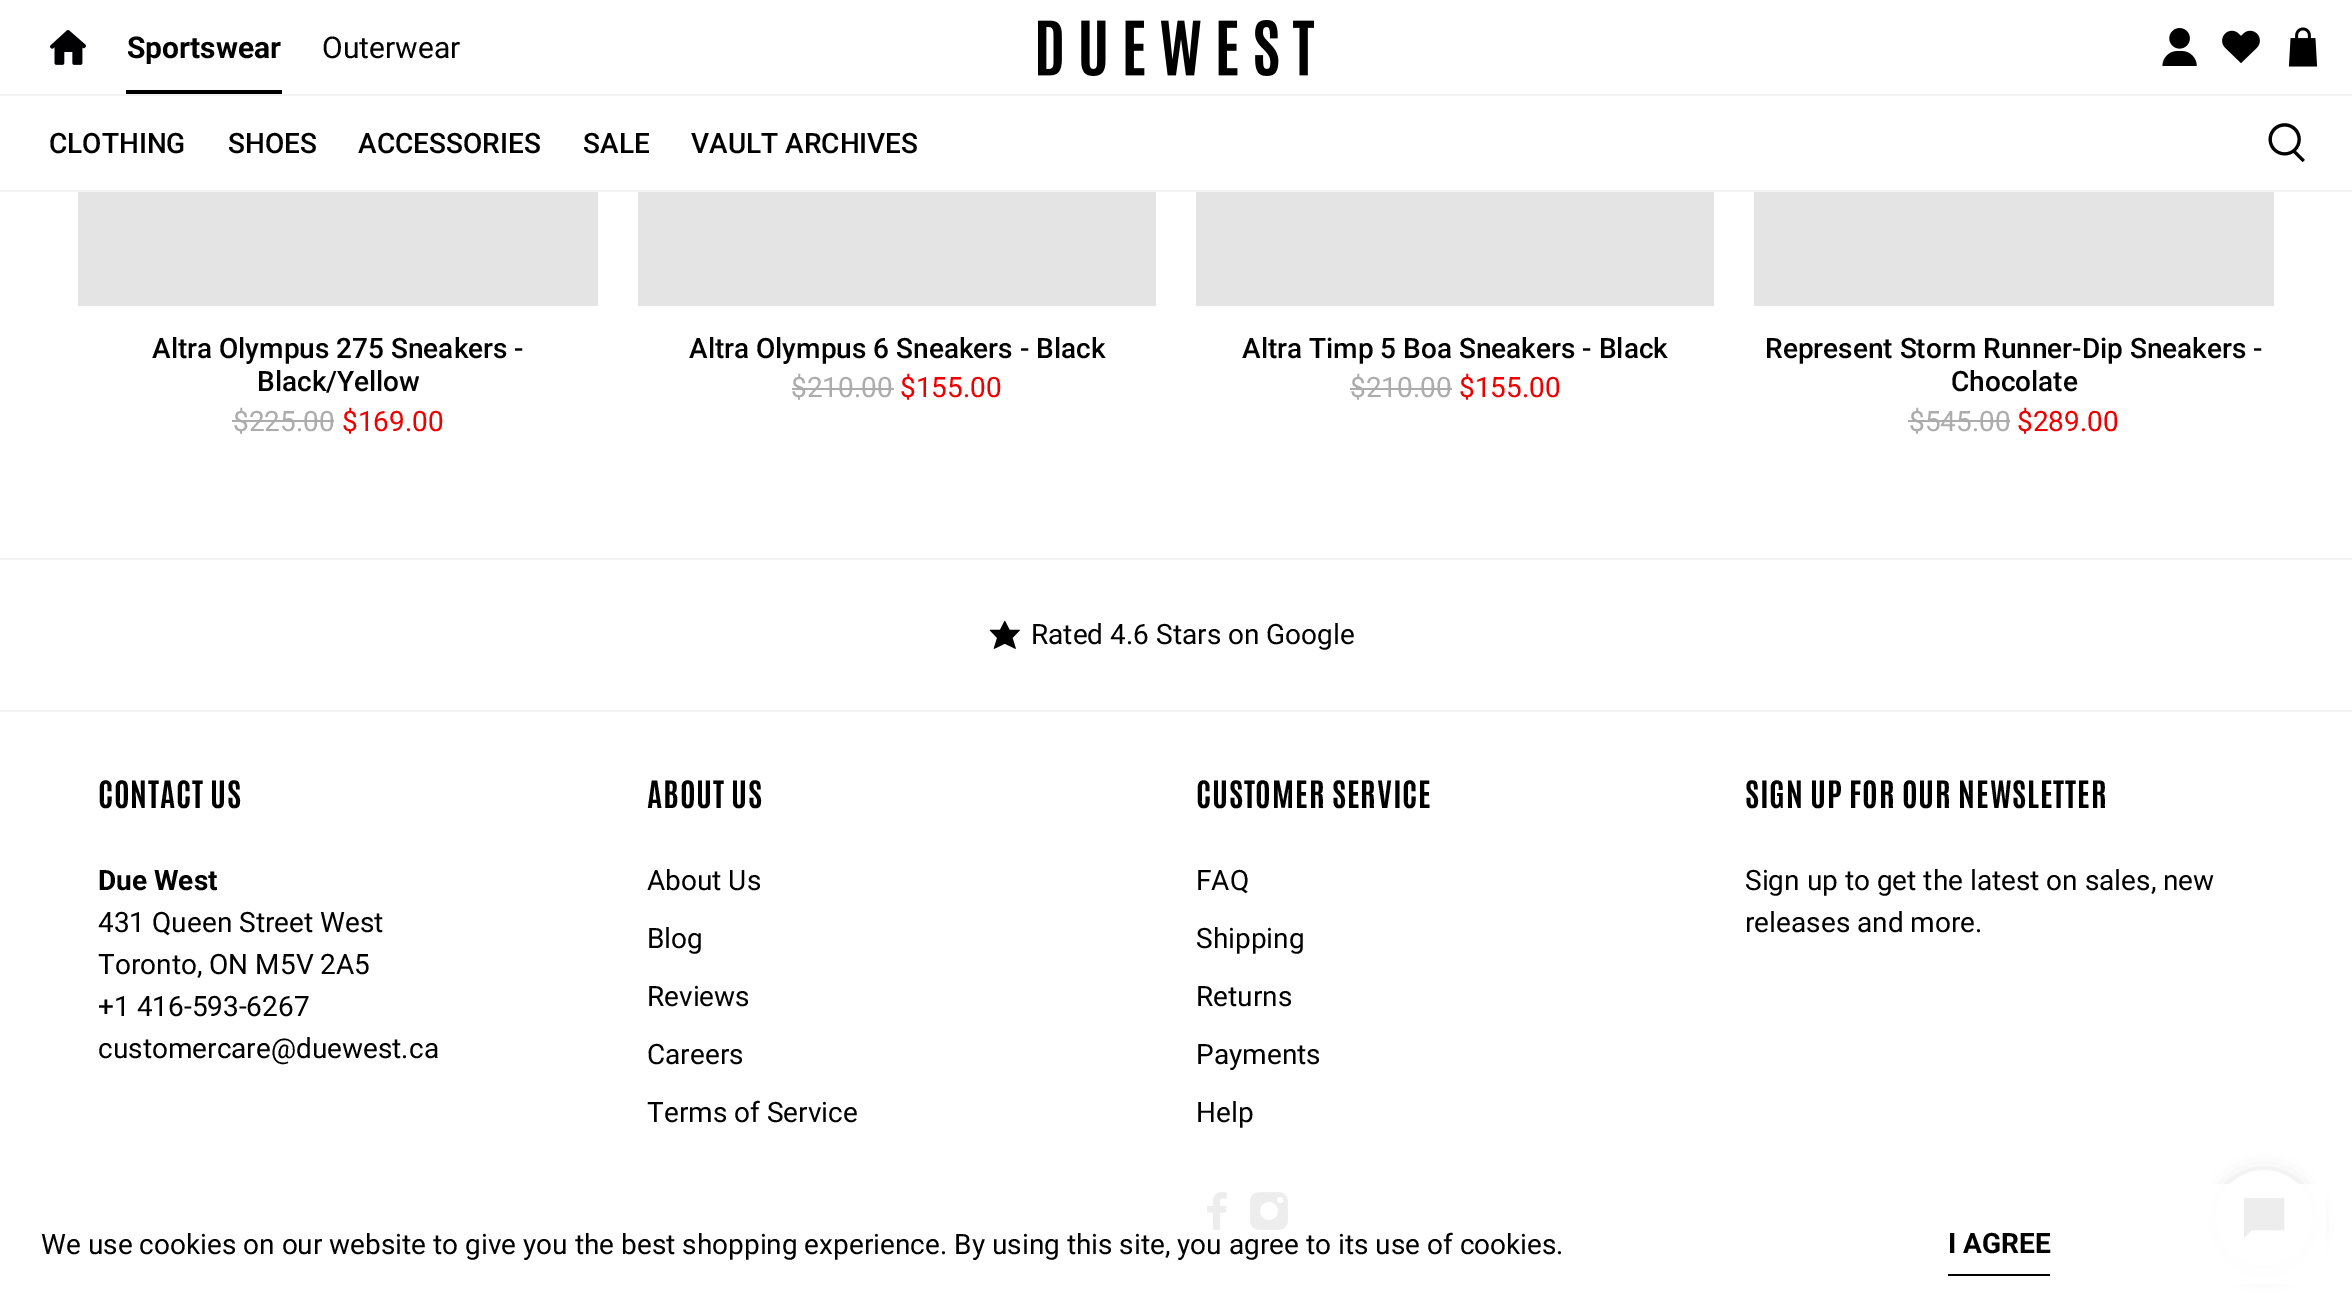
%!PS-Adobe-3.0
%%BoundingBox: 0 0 2352 1305
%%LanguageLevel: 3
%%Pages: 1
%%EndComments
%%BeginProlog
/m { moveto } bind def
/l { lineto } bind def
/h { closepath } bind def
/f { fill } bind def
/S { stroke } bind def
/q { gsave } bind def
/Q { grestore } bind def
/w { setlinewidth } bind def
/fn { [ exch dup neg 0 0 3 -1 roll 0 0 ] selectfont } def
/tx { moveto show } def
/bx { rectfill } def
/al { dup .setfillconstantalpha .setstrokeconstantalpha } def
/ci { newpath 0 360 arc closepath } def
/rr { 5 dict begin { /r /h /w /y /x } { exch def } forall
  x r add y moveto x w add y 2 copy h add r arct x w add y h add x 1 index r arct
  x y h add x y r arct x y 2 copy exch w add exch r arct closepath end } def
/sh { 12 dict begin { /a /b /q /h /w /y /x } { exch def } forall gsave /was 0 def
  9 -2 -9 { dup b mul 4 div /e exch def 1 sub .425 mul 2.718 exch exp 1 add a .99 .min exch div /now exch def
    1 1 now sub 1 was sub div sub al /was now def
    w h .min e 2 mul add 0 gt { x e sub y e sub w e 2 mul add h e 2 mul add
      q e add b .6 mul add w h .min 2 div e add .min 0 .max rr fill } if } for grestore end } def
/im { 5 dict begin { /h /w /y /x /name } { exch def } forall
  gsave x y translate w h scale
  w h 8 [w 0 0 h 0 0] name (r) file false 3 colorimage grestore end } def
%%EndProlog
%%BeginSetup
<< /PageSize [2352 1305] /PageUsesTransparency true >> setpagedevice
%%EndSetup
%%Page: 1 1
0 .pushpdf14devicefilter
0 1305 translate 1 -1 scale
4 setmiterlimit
1 setgray
0 0 2352 1305 bx
0.949 setgray
0 94 2352 2 bx
(image0.raw) 50 30 36 35 im
/Roboto-Bold 30 fn
0 setgray
(Sportswear) 127 58 tx
126 90 156 4 bx
/Roboto-Regular 30 fn
(Outerwear) 322 58 tx
(image1.raw) 1038 20 276 56 im
(image2.raw) 2162 28 35 38 im
(image3.raw) 2222 30 38 34 im
(image4.raw) 2288 27 30 40 im
0.949 setgray
0 190 2352 2 bx
/Roboto-Medium 28 fn
0 setgray
(CLOTHING) 49 153 tx
(SHOES) 228 153 tx
(ACCESSORIES) 358 153 tx
(SALE) 583 153 tx
(VAULT ARCHIVES) 691 153 tx
(image5.raw) 2268 123 37 40 im
(image6.raw) 78 192 520 114 im
(Altra Olympus 275 Sneakers -) 152 358 tx
(Black/Yellow) 257 391 tx
/Roboto-Regular 28 fn
0.675 setgray
($225.00) 233 431 tx
232 420 102 2 bx
0.933 0 0 setrgbcolor
($169.00) 342 431 tx
(image7.raw) 638 192 518 114 im
/Roboto-Medium 28 fn
0 setgray
(Altra Olympus 6 Sneakers - Black) 689 358 tx
/Roboto-Regular 28 fn
0.675 setgray
($210.00) 791 397 tx
792 388 102 2 bx
0.933 0 0 setrgbcolor
($155.00) 900 397 tx
(image7.raw) 1196 192 518 114 im
/Roboto-Medium 28 fn
0 setgray
(Altra Timp 5 Boa Sneakers - Black) 1242 358 tx
/Roboto-Regular 28 fn
0.675 setgray
($210.00) 1350 397 tx
1350 388 102 2 bx
0.933 0 0 setrgbcolor
($155.00) 1459 397 tx
(image6.raw) 1754 192 520 114 im
/Roboto-Medium 28 fn
0 setgray
(Represent Storm Runner-Dip Sneakers -) 1765 358 tx
(Chocolate) 1951 391 tx
/Roboto-Regular 28 fn
0.675 setgray
($545.00) 1909 431 tx
1908 420 102 2 bx
0.933 0 0 setrgbcolor
($289.00) 2017 431 tx
0.949 setgray
0 558 2352 2 bx
(image8.raw) 989 620 31 29 im
0 setgray
(Rated 4.6 Stars on Google) 1031 644 tx
0.949 setgray
0 710 2352 2 bx
/Antonio-Bold 32 fn
0 setgray
98 808 m 0.85 0 (CONTACT US) ashow
/Roboto-Bold 28 fn
(Due West) 98 890 tx
/Roboto-Regular 28 fn
(431 Queen Street West) 98 932 tx
(Toronto, ON M5V 2A5) 98 974 tx
(+1 416-593-6267) 98 1016 tx
(customercare@duewest.ca) 98 1058 tx
/Antonio-Bold 32 fn
647 808 m 0.85 0 (ABOUT US) ashow
/Roboto-Regular 28 fn
(About Us) 647 890 tx
(Blog) 647 948 tx
(Reviews) 647 1006 tx
(Careers) 647 1064 tx
(Terms of Service) 647 1122 tx
/Antonio-Bold 32 fn
1196 808 m 0.85 0 (CUSTOMER SERVICE) ashow
/Roboto-Regular 28 fn
(FAQ) 1196 890 tx
(Shipping) 1196 948 tx
(Returns) 1196 1006 tx
(Payments) 1196 1064 tx
(Help) 1196 1122 tx
(image9.raw) 1207 1192 20 38 im
(image10.raw) 1250 1192 38 38 im
/Antonio-Bold 32 fn
1745 808 m 0.85 0 (SIGN UP FOR OUR NEWSLETTER) ashow
/Roboto-Regular 28 fn
(Sign up to get the latest on sales, new) 1745 890 tx
(releases and more.) 1745 932 tx
2216 1174 96 96 48 10 0.15 sh
1 setgray
2264 1218 48 ci f
(image11.raw) 2253 1230 22 1 im
0 setgray
2252 1228 m 2251 1228 l 2246 1233 l 2246 1200 l 2282 1200 l 2282 1228 l h q f Q
4 w
1 setlinecap
S
0.93 al
1 setgray
1207 1184 1119 100 bx
1 al
0 setgray
(We use cookies on our website to give you the best shopping experience. By using this site, you agree to its use of cookies.) 41 1254 tx
1948 1274 102 2 bx
/Roboto-Bold 28 fn
(I AGREE) 1948 1253 tx
.poppdf14devicefilter showpage
%%EOF
